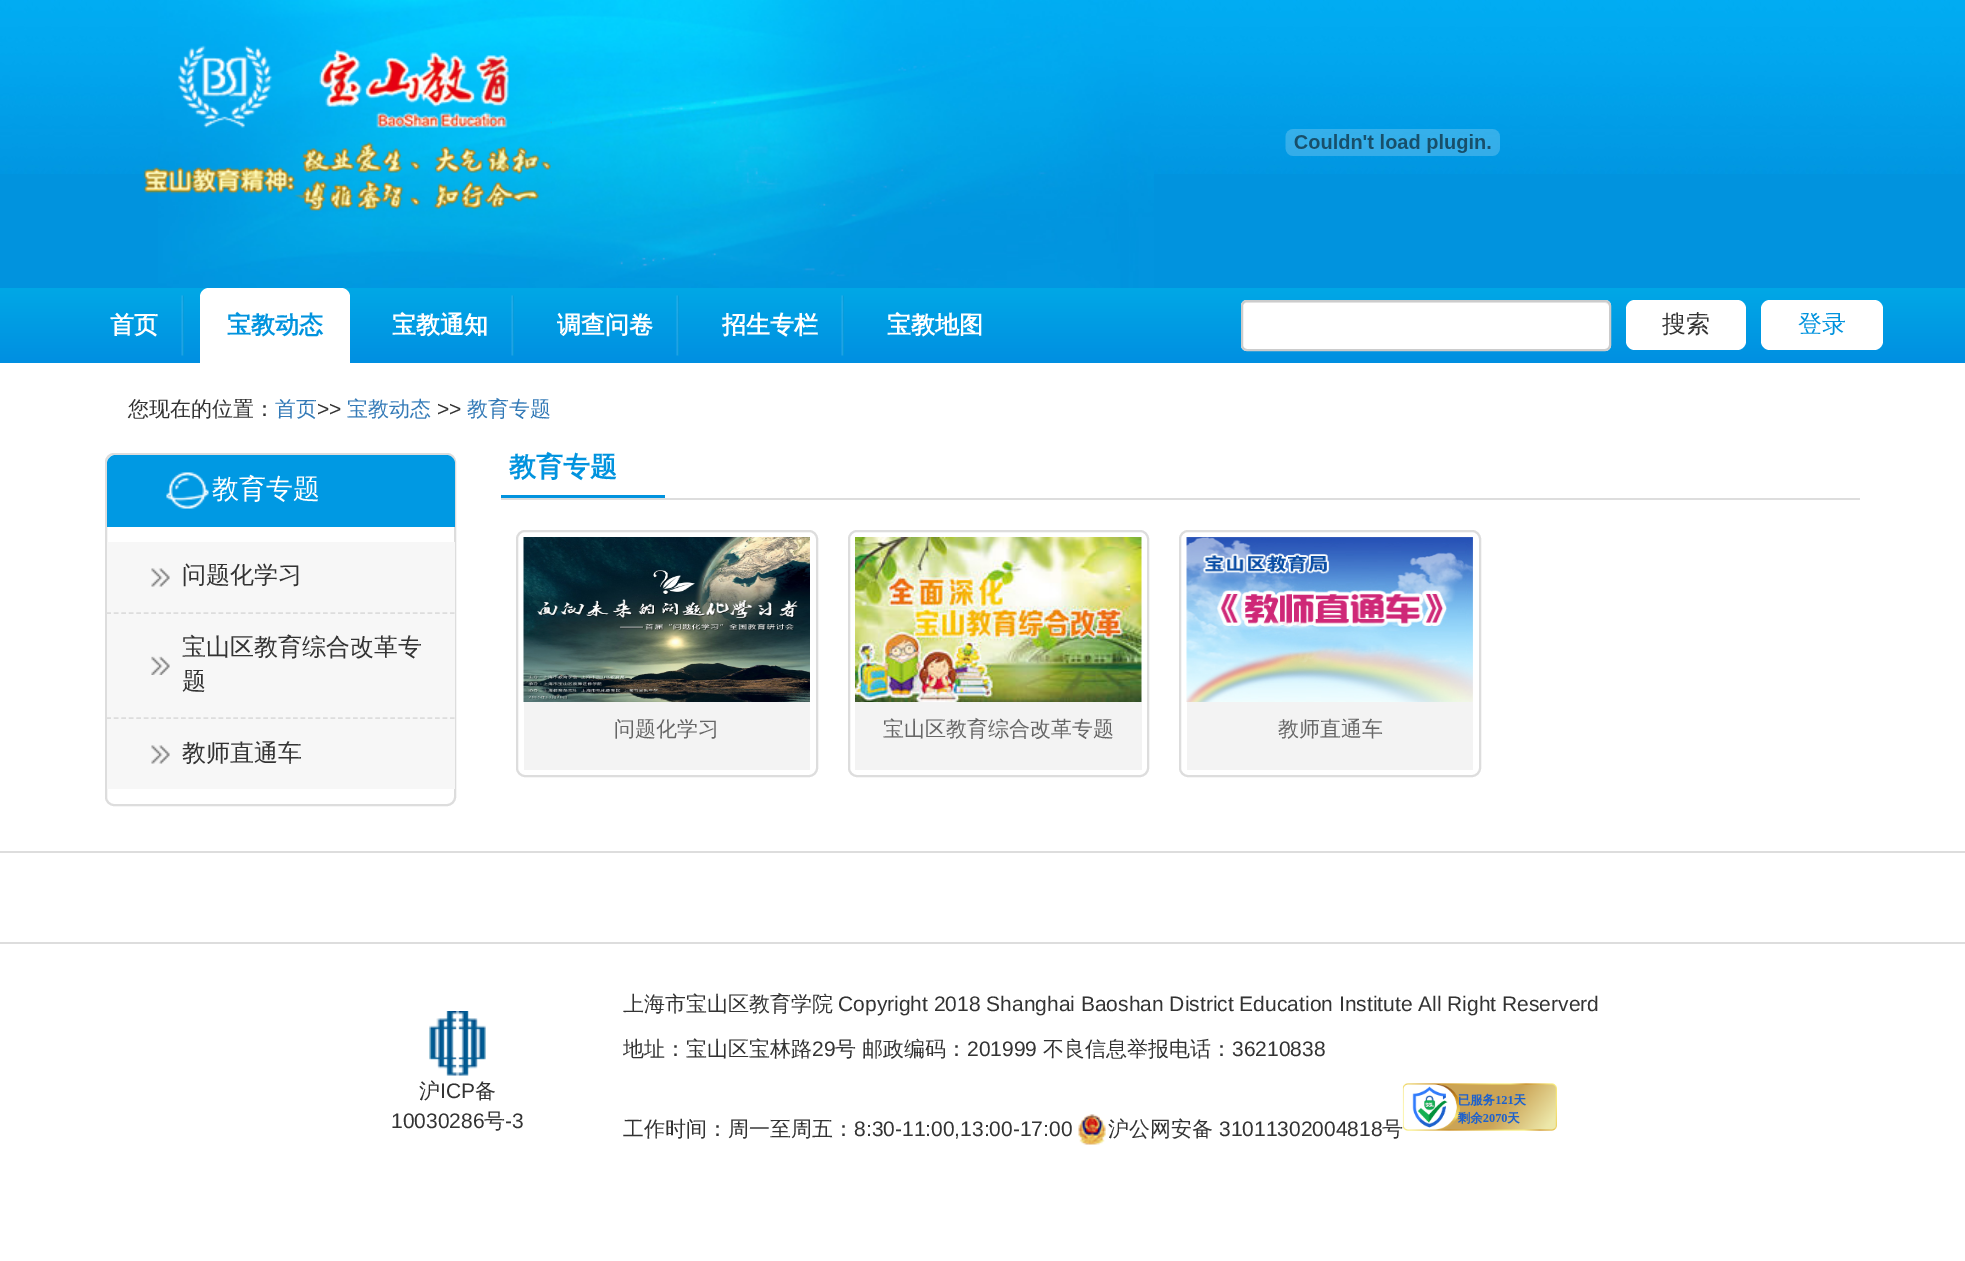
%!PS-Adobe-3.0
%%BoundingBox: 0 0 1965 1261
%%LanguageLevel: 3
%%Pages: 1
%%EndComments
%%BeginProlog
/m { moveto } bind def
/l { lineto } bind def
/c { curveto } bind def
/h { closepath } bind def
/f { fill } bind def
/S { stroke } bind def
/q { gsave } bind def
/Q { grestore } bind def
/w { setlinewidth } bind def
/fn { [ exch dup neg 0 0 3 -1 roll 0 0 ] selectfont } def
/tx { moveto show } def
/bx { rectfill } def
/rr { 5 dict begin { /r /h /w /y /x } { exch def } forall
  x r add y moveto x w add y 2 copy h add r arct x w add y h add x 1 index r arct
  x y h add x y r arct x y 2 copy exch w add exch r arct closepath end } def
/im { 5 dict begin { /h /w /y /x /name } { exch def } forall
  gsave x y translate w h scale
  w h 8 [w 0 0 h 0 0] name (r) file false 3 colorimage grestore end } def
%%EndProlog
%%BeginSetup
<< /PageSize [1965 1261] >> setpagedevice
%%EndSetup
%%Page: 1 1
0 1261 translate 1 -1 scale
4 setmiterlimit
1 setgray
0 0 1965 1261 bx
0.004 0.576 0.871 setrgbcolor
0 174 1965 114 bx
(image0.raw) 0 0 1965 174 im
(image1.raw) 158 0 996 288 im
(image2.raw) 143 45 409 167 im
(image3.raw) 1285 129 215 27 im
q 0 288 m 1965 288 l 1965 363 l 0 363 l h clip newpath
<< /ShadingType 2 /ColorSpace /DeviceRGB /Coords [983 288 983 363] /Extend [true true] /Function << /FunctionType 2 /Domain [0 1] /C0 [0.004 0.659 0.902] /C1 [0 0.561 0.882] /N 1 >> >> shfill Q
(image4.raw) 181 295 3 61 im
/WenQuanYiZenHei-Bold 24 fn
1 setgray
(首页) 110 333 tx
209 288 m 341 288 l 346 288 350 292 350 297 c 350 363 l 200 363 l 200 297 l 200 292 204 288 209 288 c h f
0.004 0.576 0.871 setrgbcolor
(宝教动态) 227 333 tx
(image4.raw) 511 295 3 61 im
1 setgray
(宝教通知) 392 333 tx
(image4.raw) 676 295 3 61 im
(调查问卷) 557 333 tx
(image4.raw) 841 295 3 61 im
(招生专栏) 722 333 tx
(宝教地图) 887 333 tx
1241 300 370 51 6 rr f
0.925 setgray
1246 303 m 1605 303 l 1607 303 1610 305 1610 308 c 1610 307 l 1610 304 1608 302 1605 302 c 1247 302 l 1244 302 1242 304 1242 307 c 1242 308 l 1242 305 1244 303 1246 303 c h f
0.8 setgray
2 w
1242 301 368 49 5 rr S
1 setgray
1626 300 120 50 9 rr f
/WenQuanYiZenHei-Medium 24 fn
0.2 setgray
(搜索) 1662 332 tx
1 setgray
1761 300 122 50 9 rr f
0.004 0.576 0.871 setrgbcolor
(登录) 1798 332 tx
/WenQuanYiZenHei-Medium 21 fn
0.2 setgray
(您现在的位置：) 128 416 tx
0.2 0.478 0.718 setrgbcolor
(首页) 275 416 tx
/LiberationSans-Regular 21 fn
0.2 setgray
(>>) 317 416 tx
/WenQuanYiZenHei-Medium 21 fn
0.2 0.478 0.718 setrgbcolor
(宝教动态) 347 416 tx
/LiberationSans-Regular 21 fn
0.2 setgray
(>>) 437 416 tx
/WenQuanYiZenHei-Medium 21 fn
0.2 0.478 0.718 setrgbcolor
(教育专题) 467 416 tx
0.867 setgray
106 454 349 351 8 rr S
0 0.6 0.89 setrgbcolor
116 455 m 446 455 l 451 455 455 459 455 464 c 455 527 l 107 527 l 107 464 l 107 459 111 455 116 455 c h f
(image5.raw) 166 472 43 37 im
/WenQuanYiZenHei-Medium 27 fn
1 setgray
(教育专题) 212 498 tx
0.969 setgray
107 542 348 247 bx
(image6.raw) 151 568 19 19 im
0.867 setgray
1.5 w
[4.5 2.97] 0 setdash
106.5 613 m 454.5 613 l S
/WenQuanYiZenHei-Medium 24 fn
0.2 setgray
(问题化学习) 182 583 tx
(image7.raw) 151 656 19 19 im
0.867 setgray
106.5 718 m 454.5 718 l S
0.2 setgray
(宝山区教育综合改革专) 182 655 tx
(题) 182 689 tx
(image6.raw) 151 745 19 19 im
(教师直通车) 182 761 tx
0.867 setgray
501 498 1359 2 bx
/WenQuanYiZenHei-Bold 27 fn
0.004 0.576 0.871 setrgbcolor
(教育专题) 509 476 tx
501 495 164 3 bx
0.867 setgray
2 w
[] 0 setdash
517 531 300 245 8 rr S
(image8.raw) 523 537 287 165 im
0.953 setgray
524 702 286 68 bx
/WenQuanYiZenHei-Medium 21 fn
0.4 setgray
(问题化学习) 614 736 tx
0.867 setgray
849 531 299 245 8 rr S
(image9.raw) 855 537 287 165 im
0.953 setgray
855 702 287 68 bx
0.4 setgray
(宝山区教育综合改革专题) 883 736 tx
0.867 setgray
1180 531 300 245 8 rr S
(image10.raw) 1186 537 287 165 im
0.953 setgray
1187 702 286 68 bx
0.4 setgray
(教师直通车) 1278 736 tx
0.867 setgray
0 851 1965 2 bx
0 942 1965 2 bx
(image11.raw) 429 1011 57 65 im
0.2 setgray
(沪) 419 1098 tx
/LiberationSans-Regular 21 fn
(ICP) 440 1098 tx
/WenQuanYiZenHei-Medium 21 fn
(备) 475 1098 tx
/LiberationSans-Regular 21 fn
(10030286) 391 1128 tx
/WenQuanYiZenHei-Medium 21 fn
(号) 484 1128 tx
/LiberationSans-Regular 21 fn
(-3) 505 1128 tx
/WenQuanYiZenHei-Medium 21 fn
(上海市宝山区教育学院) 623 1011 tx
/LiberationSans-Regular 21 fn
(Copyright 2018 Shanghai Baoshan District Education Institute All Right Reserverd) 838 1011 tx
/WenQuanYiZenHei-Medium 21 fn
(地址：宝山区宝林路) 623 1056 tx
/LiberationSans-Regular 21 fn
(29) 812 1056 tx
/WenQuanYiZenHei-Medium 21 fn
(号 邮政编码：) 835 1056 tx
/LiberationSans-Regular 21 fn
(201999) 967 1056 tx
/WenQuanYiZenHei-Medium 21 fn
(不良信息举报电话：) 1043 1056 tx
/LiberationSans-Regular 21 fn
(36210838) 1232 1056 tx
/WenQuanYiZenHei-Medium 21 fn
(工作时间：周一至周五：) 623 1136 tx
/LiberationSans-Regular 21 fn
(8:30-11:00,13:00-17:00) 854 1136 tx
(image12.raw) 1078 1114 28 31 im
/WenQuanYiZenHei-Medium 21 fn
(沪公网安备) 1108 1136 tx
/LiberationSans-Regular 21 fn
(31011302004818) 1219 1136 tx
/WenQuanYiZenHei-Medium 21 fn
(号) 1382 1136 tx
(image13.raw) 1402 1083 155 48 im
showpage
%%EOF
